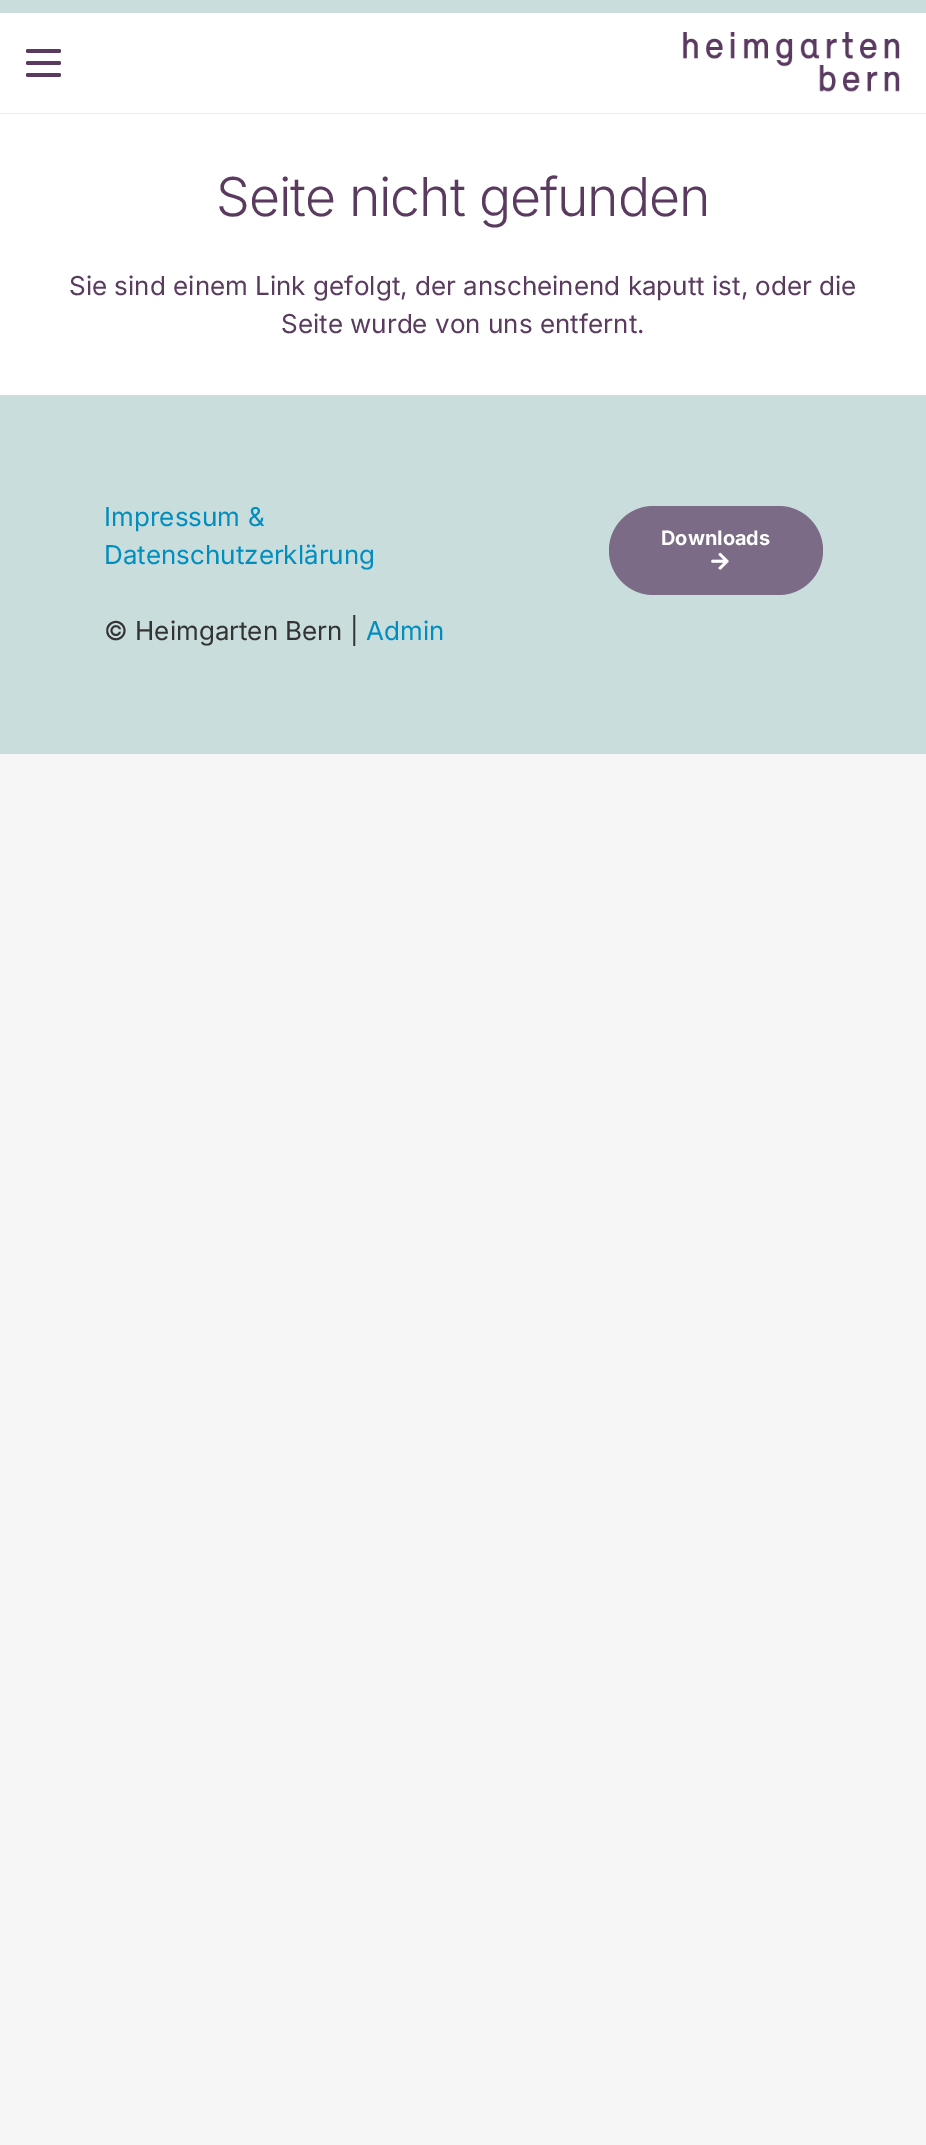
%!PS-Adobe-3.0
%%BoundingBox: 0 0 926 2145
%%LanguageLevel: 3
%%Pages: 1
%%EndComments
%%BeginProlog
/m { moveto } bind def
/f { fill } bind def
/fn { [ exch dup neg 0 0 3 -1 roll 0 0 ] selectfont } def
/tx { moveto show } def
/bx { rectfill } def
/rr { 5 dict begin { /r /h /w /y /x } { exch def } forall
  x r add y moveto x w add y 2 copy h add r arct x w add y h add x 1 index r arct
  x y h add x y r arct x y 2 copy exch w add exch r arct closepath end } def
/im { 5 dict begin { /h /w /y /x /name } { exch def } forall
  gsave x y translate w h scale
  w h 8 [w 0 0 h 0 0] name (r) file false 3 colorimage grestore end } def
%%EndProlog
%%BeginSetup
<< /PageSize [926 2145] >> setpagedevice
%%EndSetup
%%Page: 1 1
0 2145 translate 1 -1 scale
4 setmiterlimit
0.965 setgray
0 0 926 2145 bx
1 setgray
0 114 926 281 bx
0.792 0.867 0.867 setrgbcolor
0 0 926 13 bx
0.922 setgray
0 113 926 1 bx
1 setgray
0 13 926 100 bx
0.357 0.227 0.376 setrgbcolor
26 61 35 4 2 rr f
26 49 35 4 2 rr f
26 73 35 4 2 rr f
(image0.raw) 682 32 218 60 im
/Inter-Light 53.5 fn
216 216 m -1.1 0 (Seite nicht gefunden) ashow
/Inter-Regular 26 fn
(Sie sind einem Link gefolgt, der anscheinend kaputt ist, oder die) 69 295 tx
(Seite wurde von uns entfernt.) 281 333 tx
0.792 0.867 0.867 setrgbcolor
0 395 926 359 bx
0 0.557 0.749 setrgbcolor
(Impressum &) 104 526 tx
(Datenschutzerklärung) 104 564 tx
0.2 setgray
(© Heimgarten Bern |) 104 640 tx
0 0.557 0.749 setrgbcolor
(Admin) 366 640 tx
0.486 0.42 0.525 setrgbcolor
609 506 214 89 44.5 rr f
/Inter-Bold 20 fn
1 setgray
(Downloads) 661 545 tx
(image1.raw) 711 552 18 18 im
showpage
%%EOF
